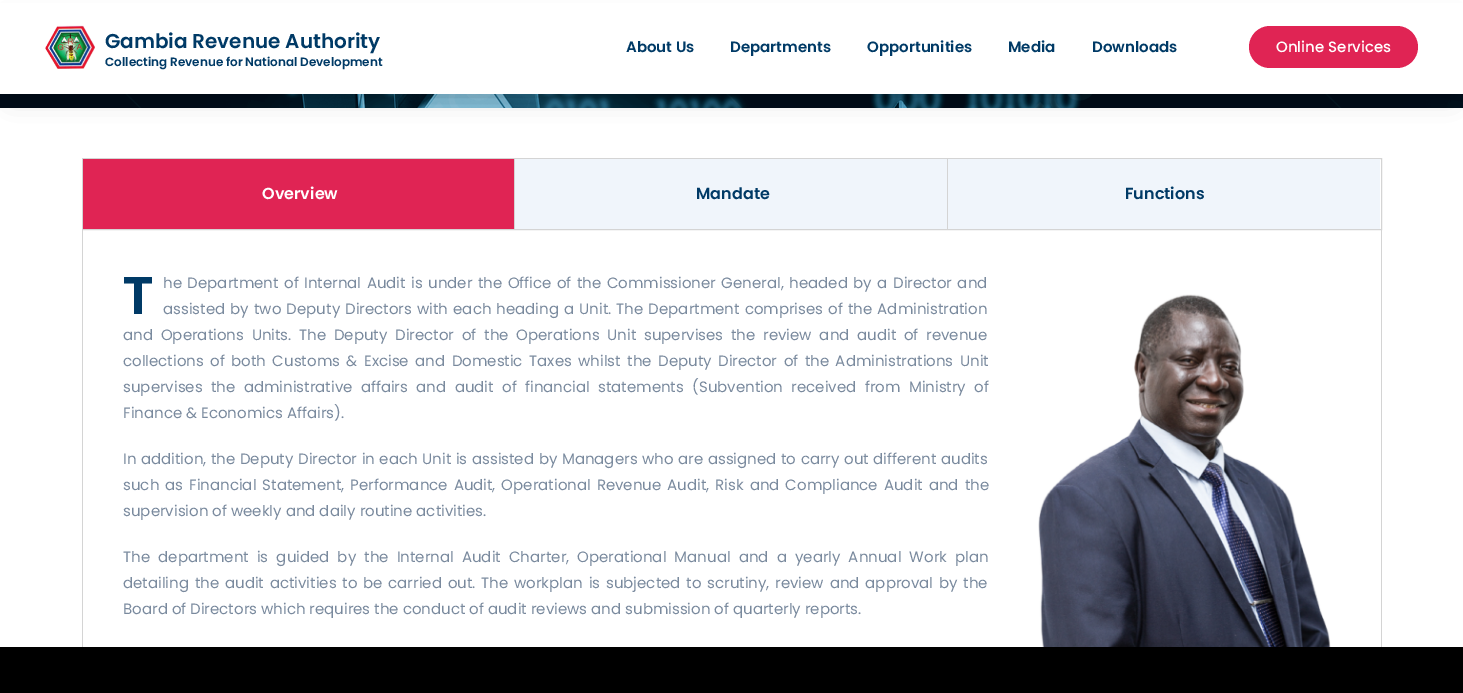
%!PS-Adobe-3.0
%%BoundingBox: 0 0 1463 693
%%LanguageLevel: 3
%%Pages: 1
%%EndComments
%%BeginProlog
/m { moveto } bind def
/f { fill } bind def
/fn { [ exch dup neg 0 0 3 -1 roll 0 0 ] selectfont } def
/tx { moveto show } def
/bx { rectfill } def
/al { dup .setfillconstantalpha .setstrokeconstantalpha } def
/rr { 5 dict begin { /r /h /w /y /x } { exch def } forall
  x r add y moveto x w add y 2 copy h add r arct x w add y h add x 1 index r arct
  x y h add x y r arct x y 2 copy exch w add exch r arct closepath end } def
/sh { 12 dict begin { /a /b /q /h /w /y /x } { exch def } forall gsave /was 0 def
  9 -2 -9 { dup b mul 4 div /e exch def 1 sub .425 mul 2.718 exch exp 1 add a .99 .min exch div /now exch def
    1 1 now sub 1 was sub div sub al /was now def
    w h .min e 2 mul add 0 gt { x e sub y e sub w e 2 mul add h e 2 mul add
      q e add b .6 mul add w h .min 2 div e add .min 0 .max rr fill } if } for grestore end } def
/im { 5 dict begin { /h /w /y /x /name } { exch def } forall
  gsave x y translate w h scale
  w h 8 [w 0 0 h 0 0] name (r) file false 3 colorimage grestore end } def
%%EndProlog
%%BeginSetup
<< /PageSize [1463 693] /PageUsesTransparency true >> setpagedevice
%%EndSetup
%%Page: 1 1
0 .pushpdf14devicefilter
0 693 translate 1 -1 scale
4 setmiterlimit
1 setgray
0 0 1463 693 bx
(image1.raw) 0 94 1463 14 im
0 setgray
12 25 1439 70 0 12.5 0.25 sh
1 setgray
0 3 1463 91 bx
(image0.raw) 45 25 50 44 im
/Poppins-SemiBold 20 fn
0 0.227 0.4 setrgbcolor
(Gambia Revenue Authority) 105 48 tx
/Poppins-SemiBold 12 fn
(Collecting Revenue for National Development) 105 66 tx
/Poppins-SemiBold 15 fn
(About Us) 626 52 tx
(Departments) 730 52 tx
(Opportunities) 867 52 tx
(Media) 1008 52 tx
(Downloads) 1092 52 tx
0.878 0.141 0.329 setrgbcolor
1249 26 169 42 21 rr f
/Poppins-Medium 15 fn
1 setgray
(Online Services) 1276 52 tx
0.831 setgray
82.5 158.5 1299 71 rectstroke
0.878 0.141 0.329 setrgbcolor
83 159 431 70 bx
/Poppins-SemiBold 16 fn
1 setgray
(Overview) 262 199 tx
0.831 setgray
514 159 1 70 bx
0.941 0.961 0.984 setrgbcolor
515 159 432 70 bx
0 0.227 0.4 setrgbcolor
(Mandate) 696 199 tx
0.831 setgray
947 159 1 70 bx
0.941 0.961 0.984 setrgbcolor
948 159 432 70 bx
0 0.227 0.4 setrgbcolor
(Functions) 1125 199 tx
0.831 setgray
1381 230 1 417 bx
82 230 1 417 bx
/NotoSans-Bold 52 fn
0 0.227 0.4 setrgbcolor
(T) 123 314 tx
/Poppins-Regular 15 fn
0.478 0.541 0.62 setrgbcolor
163 288 m 1.5 0 32 (he Department of Internal Audit is under the Office of the Commissioner General, headed by a Director and) widthshow
163 314 m 1.1 0 32 (assisted by two Deputy Directors with each heading a Unit. The Department comprises of the Administration) widthshow
123 340 m 3.75 0 32 (and Operations Units. The Deputy Director of the Operations Unit supervises the review and audit of revenue) widthshow
123 366 m 2.5 0 32 (collections of both Customs & Excise and Domestic Taxes whilst the Deputy Director of the Administrations Unit) widthshow
123 392 m 4.4 0 32 (supervises the administrative affairs and audit of financial statements \(Subvention received from Ministry of) widthshow
(Finance & Economics Affairs\).) 123 418 tx
123 464 m 0.6 0 32 (In addition, the Deputy Director in each Unit is assisted by Managers who are assigned to carry out different audits) widthshow
123 490 m 2 0 32 (such as Financial Statement, Performance Audit, Operational Revenue Audit, Risk and Compliance Audit and the) widthshow
(supervision of weekly and daily routine activities.) 123 516 tx
123 562 m 4.1 0 32 (The department is guided by the Internal Audit Charter, Operational Manual and a yearly Annual Work plan) widthshow
123 588 m 1.8 0 32 (detailing the audit activities to be carried out. The workplan is subjected to scrutiny, review and approval by the) widthshow
(Board of Directors which requires the conduct of audit reviews and submission of quarterly reports.) 123 614 tx
(image2.raw) 1038 294 294 353 im
0 setgray
0 647 1463 46 bx
.poppdf14devicefilter showpage
%%EOF
